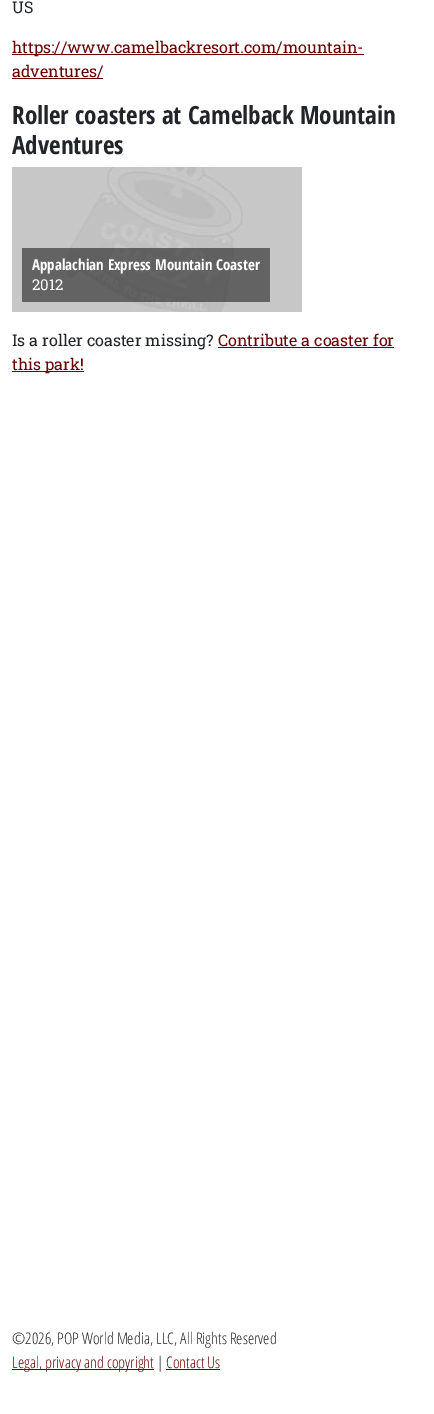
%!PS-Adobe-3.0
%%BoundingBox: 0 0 434 1414
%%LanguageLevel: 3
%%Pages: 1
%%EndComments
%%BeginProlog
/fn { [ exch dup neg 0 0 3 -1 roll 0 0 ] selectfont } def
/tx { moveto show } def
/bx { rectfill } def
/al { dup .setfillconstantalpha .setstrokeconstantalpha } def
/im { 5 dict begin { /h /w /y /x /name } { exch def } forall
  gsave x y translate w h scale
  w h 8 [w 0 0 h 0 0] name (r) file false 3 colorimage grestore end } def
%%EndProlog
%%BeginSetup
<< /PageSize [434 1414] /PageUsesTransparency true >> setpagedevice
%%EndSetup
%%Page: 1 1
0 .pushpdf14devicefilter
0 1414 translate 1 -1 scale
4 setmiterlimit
1 setgray
0 0 434 1414 bx
/RobotoSlab-Regular 16 fn
0.129 0.145 0.161 setrgbcolor
(US) 12 13 tx
0.412 0.008 0.008 setrgbcolor
12 54 352 1 bx
(https://www.camelbackresort.com/mountain-) 12 53 tx
(adventures/) 12 77 tx
12 78 91 1 bx
/OpenSansCondensed-Bold 25.1 fn
0.129 0.145 0.161 setrgbcolor
(Roller coasters at Camelback Mountain) 12 124 tx
(Adventures) 12 154 tx
0.78 setgray
12 167 290 145 bx
(image0.raw) 66 167 177 145 im
0.5 al
0 setgray
22 248 248 54 bx
/OpenSansCondensed-Bold 15 fn
1 al
1 setgray
(Appalachian Express Mountain Coaster) 32 270 tx
/RobotoSlab-Regular 15 fn
(2012) 32 290 tx
/RobotoSlab-Regular 16 fn
0.129 0.145 0.161 setrgbcolor
(Is a roller coaster missing?) 12 346 tx
0.412 0.008 0.008 setrgbcolor
(Contribute a coaster for) 218 346 tx
218 347 176 1 bx
12 371 72 1 bx
(this park!) 12 370 tx
/OpenSansCondensed-Light 16 fn
0.129 0.145 0.161 setrgbcolor
(©2026, POP World Media, LLC, All Rights Reserved) 12 1344 tx
0.412 0.008 0.008 setrgbcolor
12 1369 142 1 bx
(Legal, privacy and copyright) 12 1368 tx
0.129 0.145 0.161 setrgbcolor
(|) 157 1368 tx
0.412 0.008 0.008 setrgbcolor
(Contact Us) 166 1368 tx
166 1369 54 1 bx
.poppdf14devicefilter showpage
%%EOF
